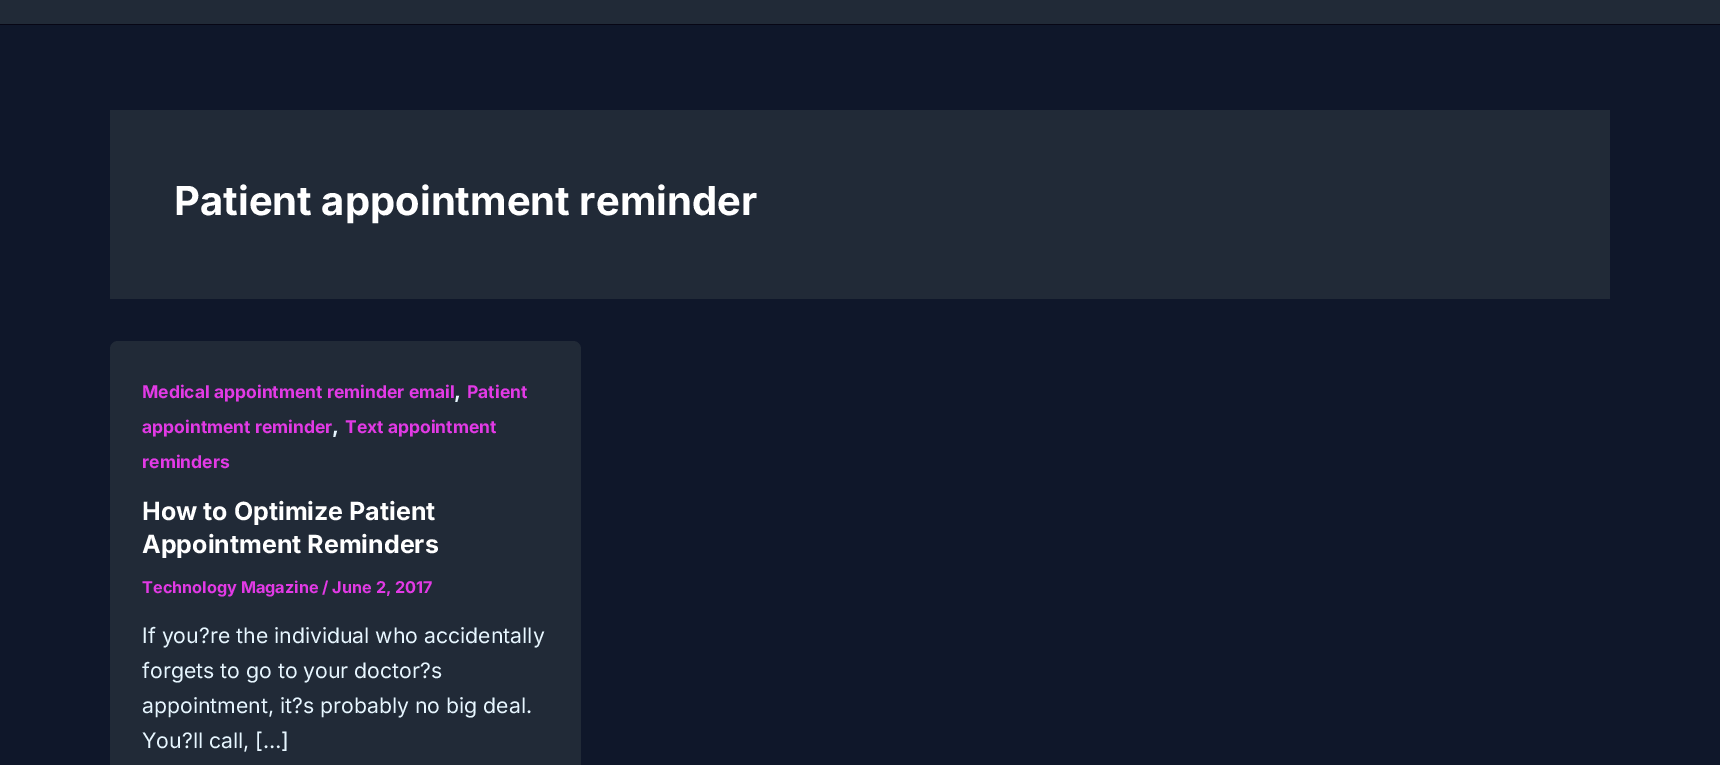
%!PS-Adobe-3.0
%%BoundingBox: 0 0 1720 765
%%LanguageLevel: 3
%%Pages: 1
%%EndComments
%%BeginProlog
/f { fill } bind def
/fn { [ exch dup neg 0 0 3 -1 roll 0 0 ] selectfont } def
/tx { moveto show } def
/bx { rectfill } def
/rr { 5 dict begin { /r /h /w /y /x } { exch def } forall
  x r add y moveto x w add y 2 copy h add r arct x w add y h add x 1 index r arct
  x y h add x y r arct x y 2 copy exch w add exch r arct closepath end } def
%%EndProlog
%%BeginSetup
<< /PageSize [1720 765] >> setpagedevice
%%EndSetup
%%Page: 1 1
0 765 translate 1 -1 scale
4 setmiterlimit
0.059 0.09 0.165 setrgbcolor
0 0 1720 765 bx
0.129 0.165 0.216 setrgbcolor
0 0 1720 24 bx
0.027 0.024 0.078 setrgbcolor
0 24 1720 1 bx
0.129 0.165 0.216 setrgbcolor
110 110 1500 189 bx
/Inter-Bold 40 fn
1 setgray
(Patient appointment reminder) 174 215 tx
0.129 0.165 0.216 setrgbcolor
110 341 471 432 8 rr f
/Inter-Bold 17.5 fn
0.886 0.227 0.898 setrgbcolor
(Medical appointment reminder email) 142 398 tx
/Inter-Bold 21.25 fn
0.906 0.965 1 setrgbcolor
(,) 454 398 tx
/Inter-Bold 17.5 fn
0.886 0.227 0.898 setrgbcolor
(Patient) 467 398 tx
(appointment reminder) 142 433 tx
/Inter-Bold 21.25 fn
0.906 0.965 1 setrgbcolor
(,) 332 433 tx
/Inter-Bold 17.5 fn
0.886 0.227 0.898 setrgbcolor
(Text appointment) 345 433 tx
(reminders) 142 468 tx
/Inter-Bold 25 fn
1 setgray
(How to Optimize Patient) 142 520 tx
(Appointment Reminders) 142 553 tx
/Inter-Bold 16.25 fn
0.886 0.227 0.898 setrgbcolor
(Technology Magazine / June 2, 2017) 142 593 tx
/Inter-Regular 21.25 fn
0.906 0.965 1 setrgbcolor
(If you?re the individual who accidentally) 142 643 tx
(forgets to go to your doctor?s) 142 678 tx
(appointment, it?s probably no big deal.) 142 713 tx
(You?ll call, […]) 142 748 tx
showpage
%%EOF
